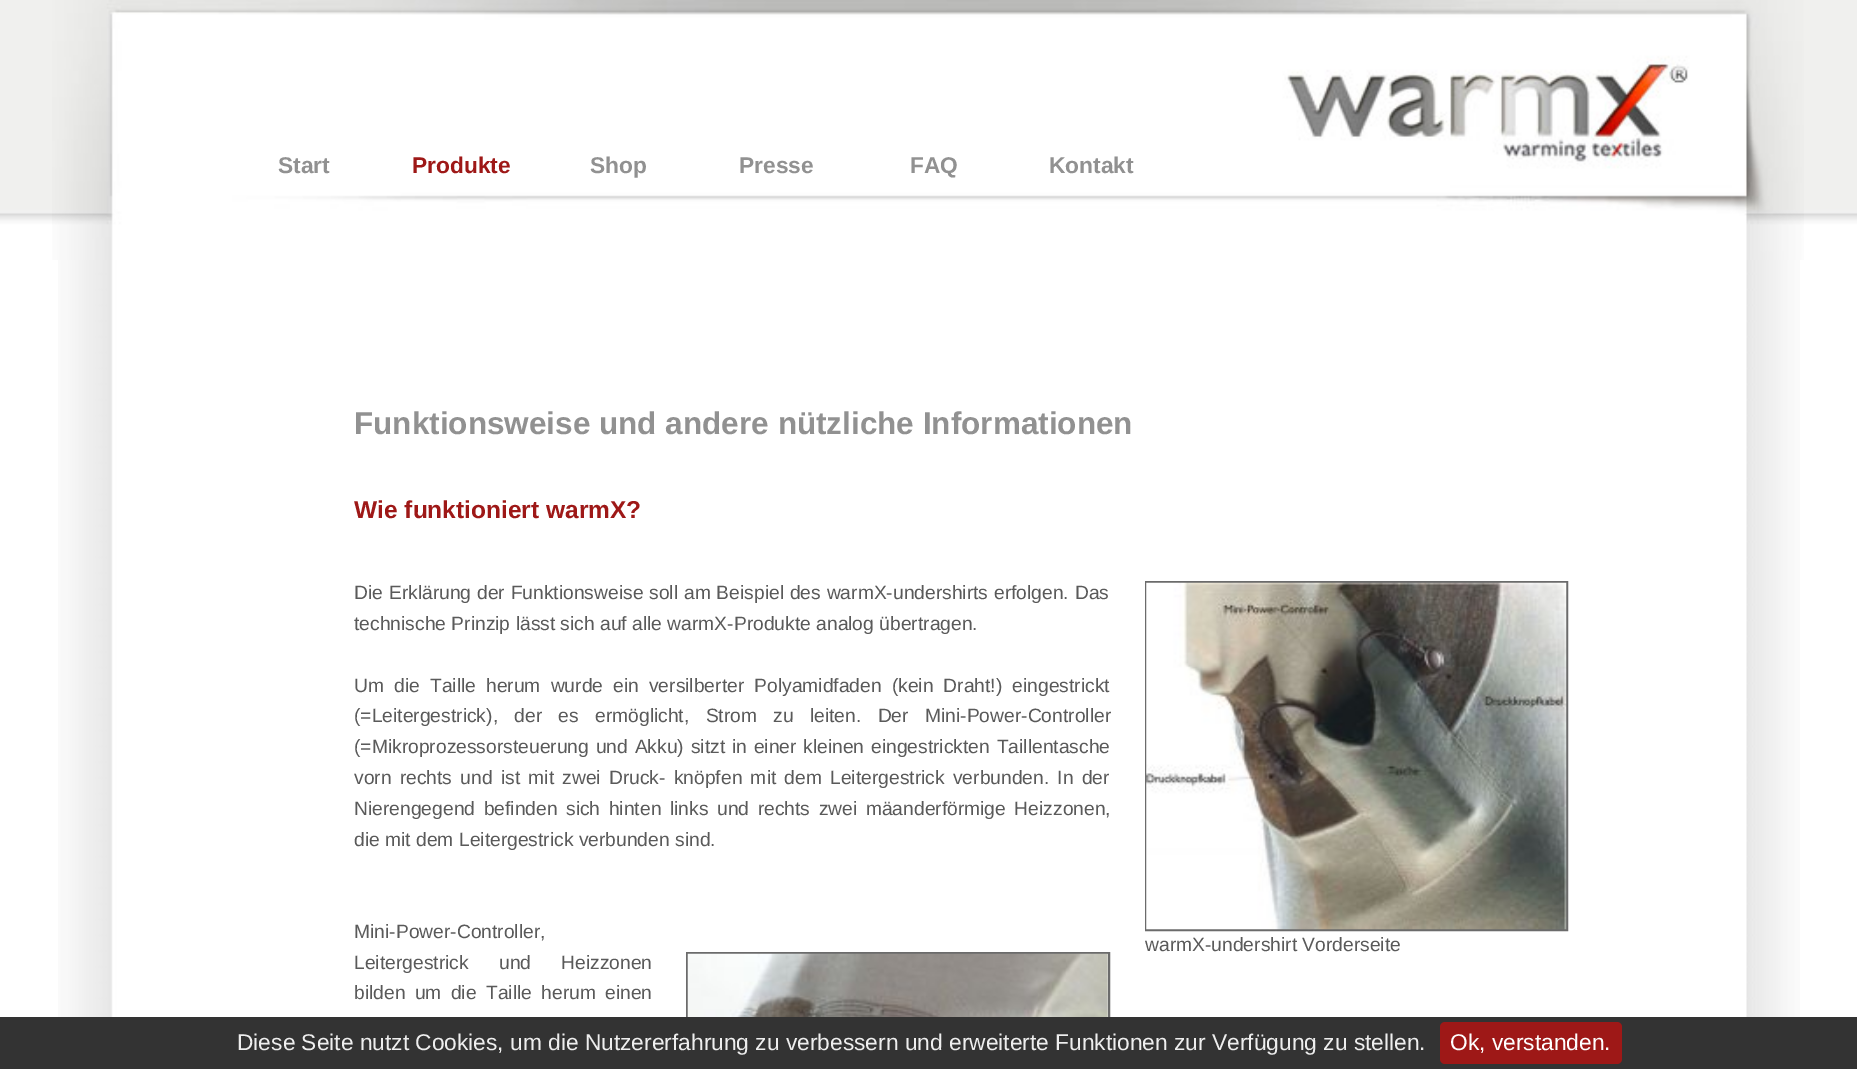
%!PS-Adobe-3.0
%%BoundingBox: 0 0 1857 1069
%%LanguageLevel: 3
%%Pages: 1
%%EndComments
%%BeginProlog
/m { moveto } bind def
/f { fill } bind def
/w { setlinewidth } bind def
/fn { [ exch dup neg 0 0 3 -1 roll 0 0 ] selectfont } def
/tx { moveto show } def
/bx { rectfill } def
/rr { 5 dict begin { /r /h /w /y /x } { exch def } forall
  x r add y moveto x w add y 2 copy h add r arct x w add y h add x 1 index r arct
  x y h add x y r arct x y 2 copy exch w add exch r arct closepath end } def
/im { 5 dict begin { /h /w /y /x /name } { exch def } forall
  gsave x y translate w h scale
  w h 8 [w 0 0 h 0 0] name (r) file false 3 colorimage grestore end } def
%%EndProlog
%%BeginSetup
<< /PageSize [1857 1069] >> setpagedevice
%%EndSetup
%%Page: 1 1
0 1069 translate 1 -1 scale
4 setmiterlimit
1 setgray
0 0 1857 1069 bx
(image0.raw) 58 260 1742 757 im
(image1.raw) 0 0 1857 258 im
(image2.raw) 52 0 1752 260 im
/LiberationSans-Bold 22.75 fn
0.569 setgray
(Start) 278 173 tx
0.62 0.094 0.09 setrgbcolor
(Produkte) 412 173 tx
0.569 setgray
(Shop) 590 173 tx
(Presse) 739 173 tx
(FAQ) 910 173 tx
(Kontakt) 1049 173 tx
/LiberationSans-Bold 31.5 fn
(Funktionsweise und andere nützliche Informationen) 354 434 tx
/LiberationSans-Bold 24.5 fn
0.62 0.094 0.09 setrgbcolor
(Wie funktioniert warmX?) 354 518 tx
/LiberationSans-Regular 19.25 fn
0.353 setgray
354 599 m 0.5 0 32 (Die Erklärung der Funktionsweise soll am Beispiel des warmX-undershirts erfolgen. Das) widthshow
(technische Prinzip lässt sich auf alle warmX-Produkte analog übertragen.) 354 630 tx
354 692 m 4.75 0 32 (Um die Taille herum wurde ein versilberter Polyamidfaden \(kein Draht!\) eingestrickt) widthshow
354 722 m 11 0 32 (\(=Leitergestrick\), der es ermöglicht, Strom zu leiten. Der Mini-Power-Controller) widthshow
354 753 m 1.5 0 32 (\(=Mikroprozessorsteuerung und Akku\) sitzt in einer kleinen eingestrickten Taillentasche) widthshow
354 784 m 2.9 0 32 (vorn rechts und ist mit zwei Druck- knöpfen mit dem Leitergestrick verbunden. In der) widthshow
354 815 m 3.25 0 32 (Nierengegend befinden sich hinten links und rechts zwei mäanderförmige Heizzonen,) widthshow
(die mit dem Leitergestrick verbunden sind.) 354 846 tx
0.42 setgray
2 w
1146 582 421 348 rectstroke
(image3.raw) 1146 582 421 348 im
0.353 setgray
(warmX-undershirt Vorderseite) 1145 951 tx
(Mini-Power-Controller,) 354 938 tx
354 969 m 25 0 32 (Leitergestrick und Heizzonen) widthshow
354 999 m 4 0 32 (bilden um die Taille herum einen) widthshow
0.42 setgray
687 953 422 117 rectstroke
(image4.raw) 687 953 421 64 im
0.2 setgray
0 1017 1857 52 bx
/LiberationSans-Regular 22.75 fn
0.933 setgray
(Diese Seite nutzt Cookies, um die Nutzererfahrung zu verbessern und erweiterte Funktionen zur Verfügung zu stellen.) 237 1050 tx
0.62 0.094 0.09 setrgbcolor
1440 1022 182 42 5 rr f
1 setgray
(Ok, verstanden.) 1450 1050 tx
showpage
%%EOF
